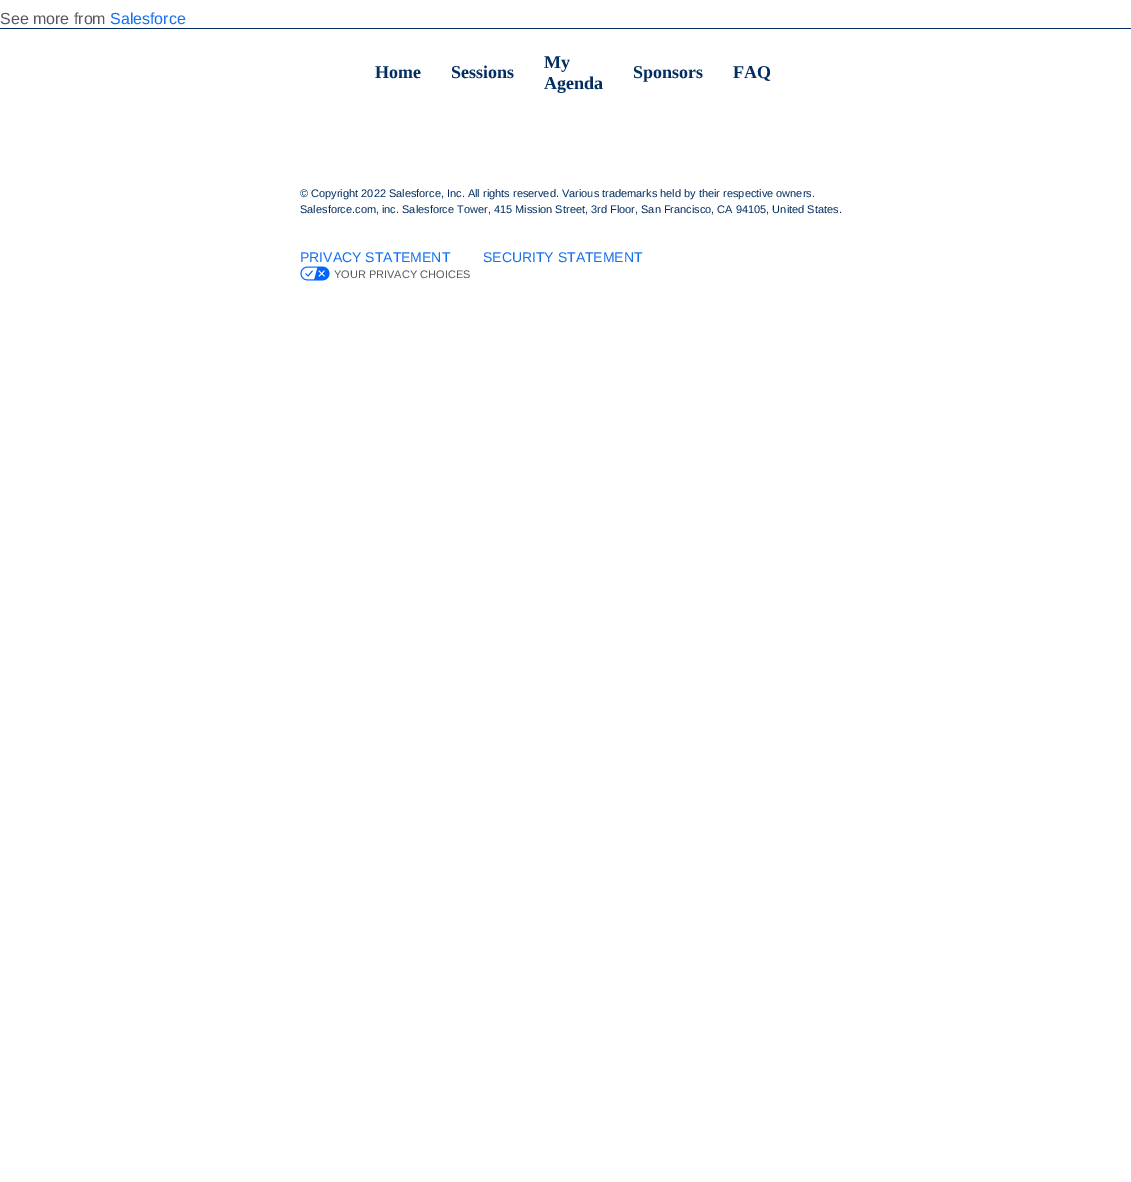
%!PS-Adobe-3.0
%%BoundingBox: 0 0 1131 1182
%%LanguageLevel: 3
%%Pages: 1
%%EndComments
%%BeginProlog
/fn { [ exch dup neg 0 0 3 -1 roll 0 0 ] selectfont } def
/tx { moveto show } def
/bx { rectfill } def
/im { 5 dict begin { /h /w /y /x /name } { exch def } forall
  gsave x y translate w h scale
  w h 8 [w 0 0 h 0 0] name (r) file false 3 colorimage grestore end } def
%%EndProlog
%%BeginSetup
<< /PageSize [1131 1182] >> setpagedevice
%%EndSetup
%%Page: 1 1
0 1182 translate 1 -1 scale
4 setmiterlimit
1 setgray
0 0 1131 1182 bx
/LiberationSans-Regular 16 fn
0.349 0.341 0.361 setrgbcolor
(See more from) 0 24 tx
0.082 0.439 0.937 setrgbcolor
(Salesforce) 110 24 tx
0.012 0.176 0.376 setrgbcolor
0 28 1131 1 bx
/LiberationSerif-Bold 18 fn
(Home) 375 78 tx
(Sessions) 451 78 tx
(My) 544 68 tx
(Agenda) 544 89 tx
(Sponsors) 633 78 tx
(FAQ) 733 78 tx
/LiberationSans-Regular 11 fn
(© Copyright 2022 Salesforce, Inc. All rights reserved. Various trademarks held by their respective owners.) 300 197 tx
(Salesforce.com, inc. Salesforce Tower, 415 Mission Street, 3rd Floor, San Francisco, CA 94105, United States.) 300 213 tx
/LiberationSans-Regular 14 fn
0.082 0.439 0.937 setrgbcolor
(PRIVACY STATEMENT) 300 262 tx
(SECURITY STATEMENT) 483 262 tx
(image0.raw) 300 266 30 15 im
/LiberationSans-Regular 11 fn
0.349 0.341 0.361 setrgbcolor
(YOUR PRIVACY CHOICES) 334 278 tx
showpage
%%EOF
